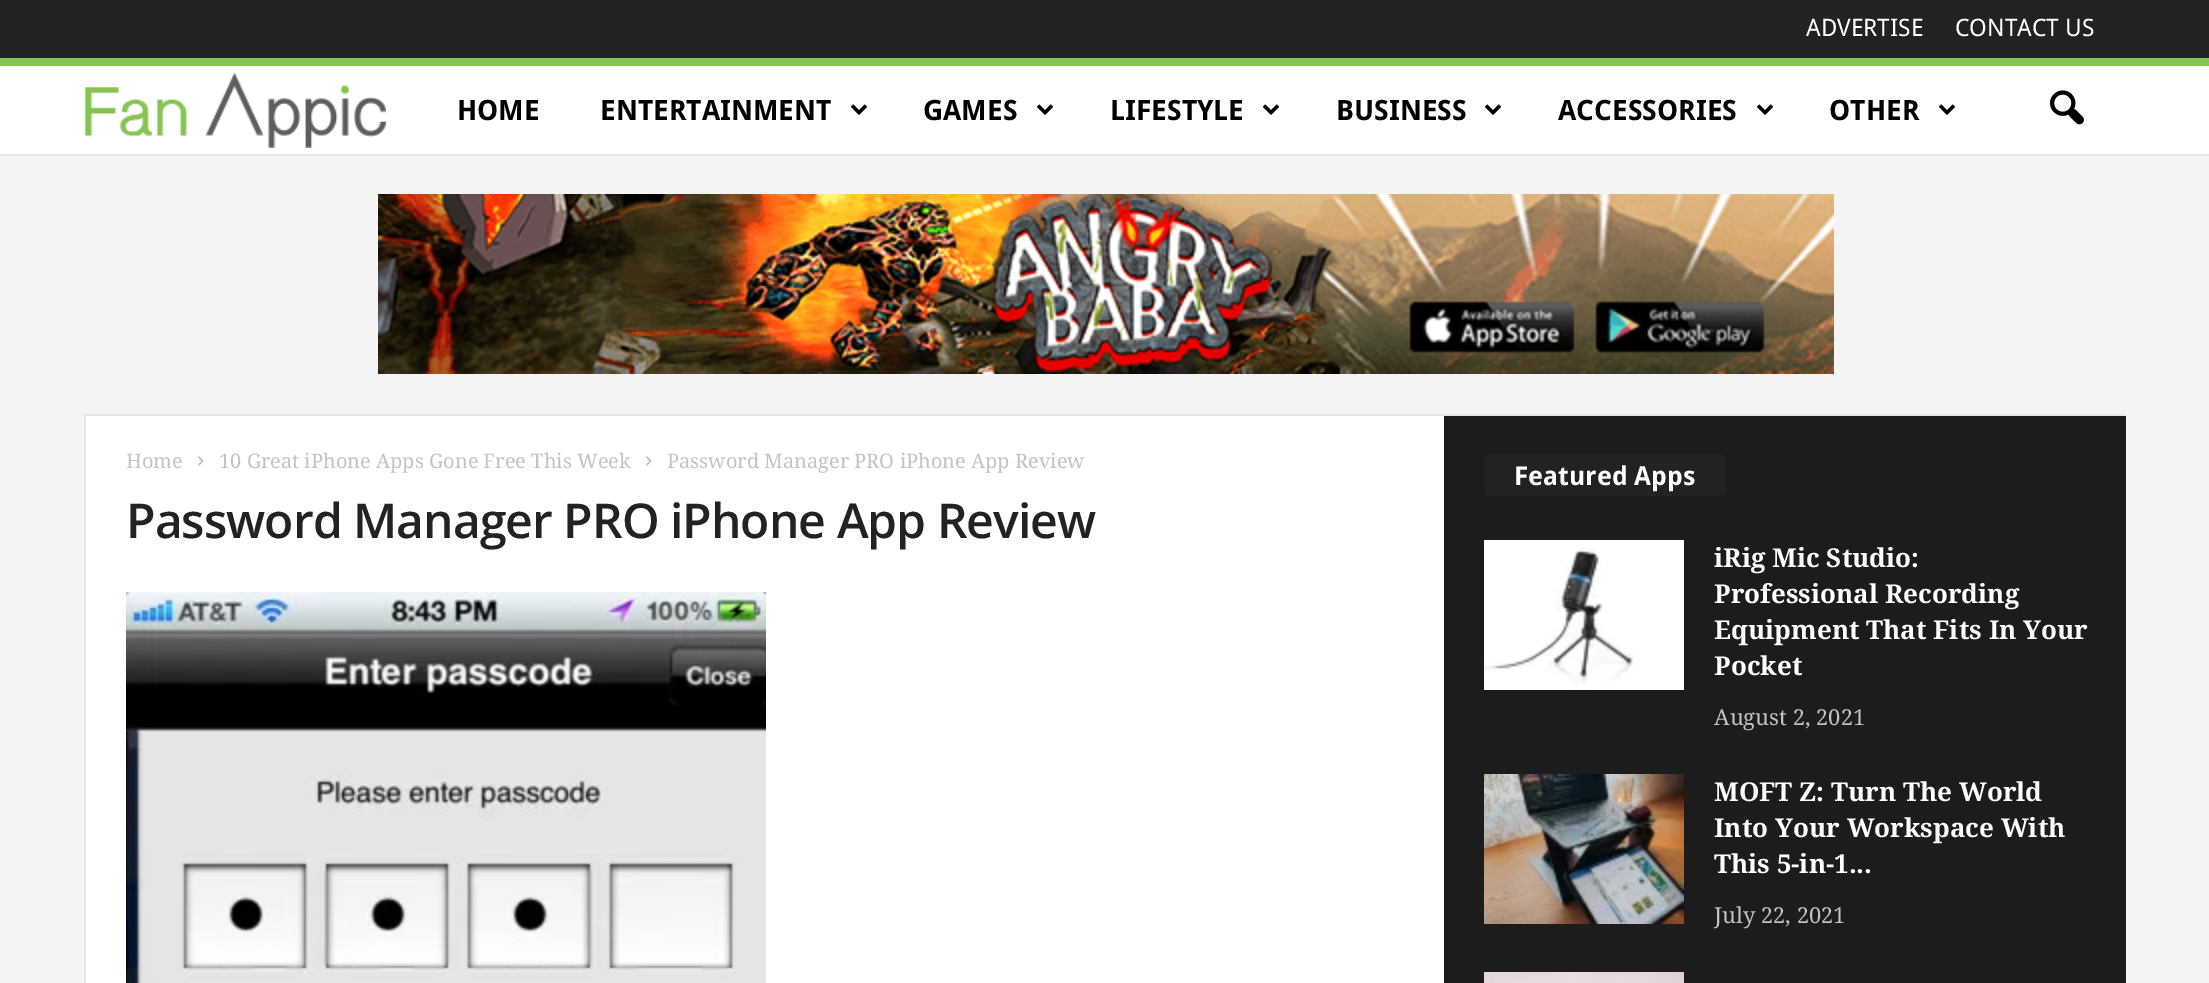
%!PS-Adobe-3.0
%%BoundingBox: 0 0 2209 983
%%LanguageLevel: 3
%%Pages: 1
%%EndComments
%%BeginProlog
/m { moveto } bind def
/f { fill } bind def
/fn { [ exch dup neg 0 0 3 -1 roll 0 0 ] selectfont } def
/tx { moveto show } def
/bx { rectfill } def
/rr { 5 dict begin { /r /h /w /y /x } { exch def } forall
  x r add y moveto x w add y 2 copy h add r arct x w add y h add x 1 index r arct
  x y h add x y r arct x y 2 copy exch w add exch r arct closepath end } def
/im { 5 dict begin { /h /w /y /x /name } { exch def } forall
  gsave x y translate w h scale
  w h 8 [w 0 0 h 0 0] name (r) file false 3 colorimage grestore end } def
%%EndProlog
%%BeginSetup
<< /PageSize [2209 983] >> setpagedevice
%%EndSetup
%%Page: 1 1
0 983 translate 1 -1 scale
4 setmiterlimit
0.957 setgray
0 0 2209 983 bx
0.133 setgray
0 0 2209 58 bx
/DroidSans-Regular 24 fn
1 setgray
(ADVERTISE) 1806 36 tx
(CONTACT US) 1955 36 tx
0 66 2209 88 bx
0.902 setgray
0 154 2209 2 bx
0.522 0.769 0.314 setrgbcolor
0 58 2209 8 bx
(image0.raw) 84 72 302 76 im
/DroidSans-Bold 28 fn
0 setgray
(HOME) 457 120 tx
(ENTERTAINMENT) 600 120 tx
(image1.raw) 850 104 18 11 im
(GAMES) 923 120 tx
(image1.raw) 1036 104 18 11 im
(LIFESTYLE) 1110 120 tx
(image1.raw) 1262 104 18 11 im
(BUSINESS) 1336 120 tx
(image1.raw) 1484 104 18 11 im
(ACCESSORIES) 1558 120 tx
(image1.raw) 1756 104 18 11 im
(OTHER) 1829 120 tx
(image1.raw) 1938 104 18 11 im
(image2.raw) 2050 90 34 35 im
0.902 setgray
84 414 2042 2 bx
(image3.raw) 378 194 1456 180 im
1 setgray
86 416 1358 567 bx
0.902 setgray
84 416 2 567 bx
/DroidSerif-Regular 20 fn
0.765 setgray
(Home) 126 468 tx
(image4.raw) 198 456 6 10 im
(10 Great iPhone Apps Gone Free This Week) 219 468 tx
(image4.raw) 646 456 6 10 im
(Password Manager PRO iPhone App Review) 667 468 tx
/OpenSans-SemiBold 48 fn
0.133 setgray
126 538 m -0.95 0 (Password Manager PRO iPhone App Review) ashow
(image5.raw) 126 592 640 391 im
0.11 setgray
1444 416 682 567 bx
0.133 setgray
1484 454 242 42 6 rr f
/DroidSans-Bold 26 fn
1 setgray
(Featured Apps) 1514 485 tx
(image6.raw) 1484 540 200 150 im
/DroidSerif-Bold 26 fn
(iRig Mic Studio:) 1714 567 tx
(Professional Recording) 1714 603 tx
(Equipment That Fits In Your) 1714 639 tx
(Pocket) 1714 675 tx
/DroidSerif-Regular 22 fn
0.765 setgray
(August 2, 2021) 1714 725 tx
(image7.raw) 1484 774 200 150 im
/DroidSerif-Bold 26 fn
1 setgray
(MOFT Z: Turn The World) 1714 801 tx
(Into Your Workspace With) 1714 837 tx
(This 5-in-1...) 1714 873 tx
/DroidSerif-Regular 22 fn
0.765 setgray
(July 22, 2021) 1714 923 tx
(image8.raw) 1484 972 200 11 im
showpage
%%EOF
